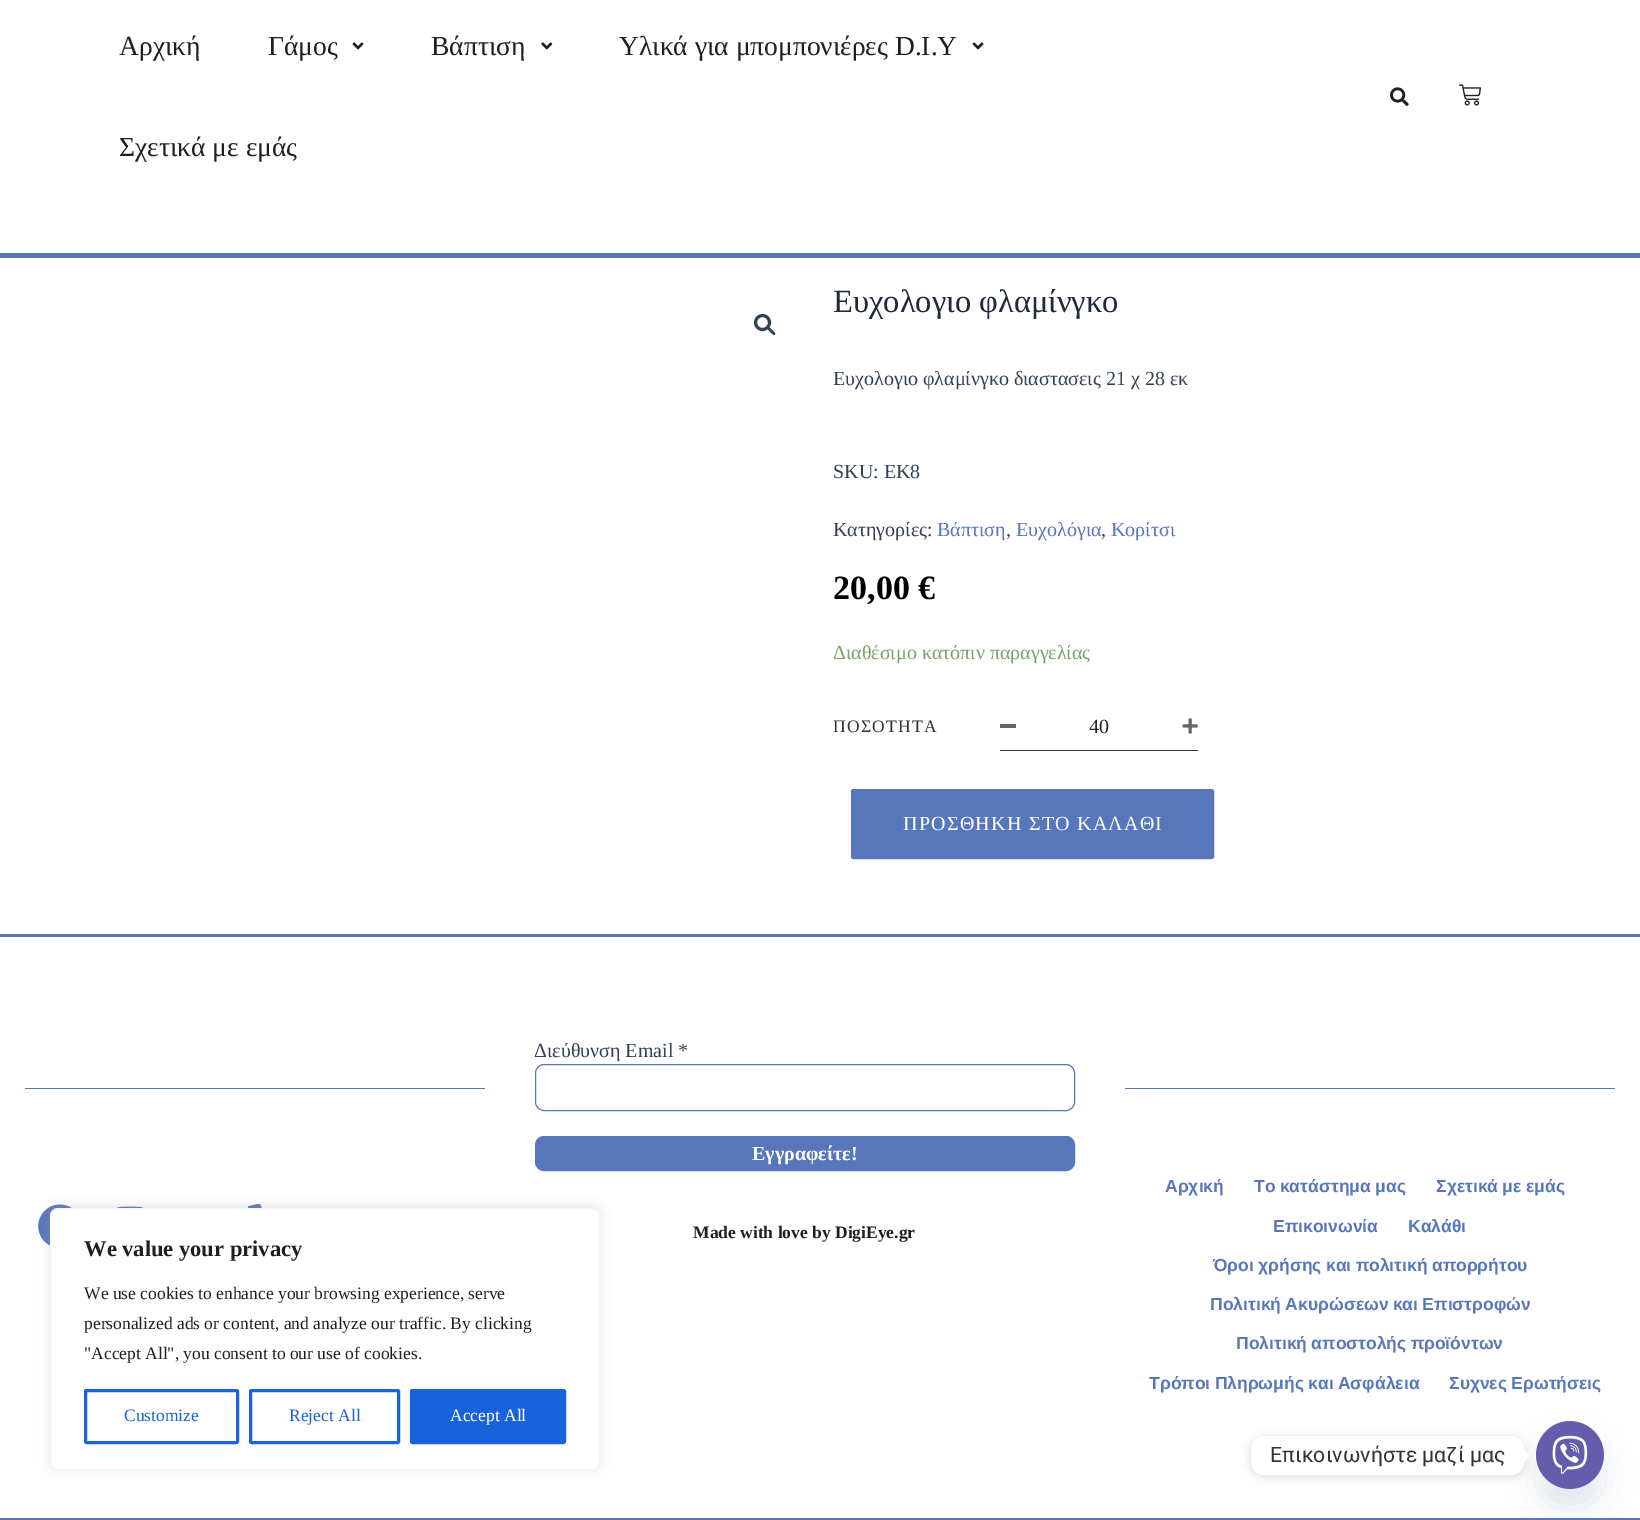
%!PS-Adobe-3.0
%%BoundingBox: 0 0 1640 1520
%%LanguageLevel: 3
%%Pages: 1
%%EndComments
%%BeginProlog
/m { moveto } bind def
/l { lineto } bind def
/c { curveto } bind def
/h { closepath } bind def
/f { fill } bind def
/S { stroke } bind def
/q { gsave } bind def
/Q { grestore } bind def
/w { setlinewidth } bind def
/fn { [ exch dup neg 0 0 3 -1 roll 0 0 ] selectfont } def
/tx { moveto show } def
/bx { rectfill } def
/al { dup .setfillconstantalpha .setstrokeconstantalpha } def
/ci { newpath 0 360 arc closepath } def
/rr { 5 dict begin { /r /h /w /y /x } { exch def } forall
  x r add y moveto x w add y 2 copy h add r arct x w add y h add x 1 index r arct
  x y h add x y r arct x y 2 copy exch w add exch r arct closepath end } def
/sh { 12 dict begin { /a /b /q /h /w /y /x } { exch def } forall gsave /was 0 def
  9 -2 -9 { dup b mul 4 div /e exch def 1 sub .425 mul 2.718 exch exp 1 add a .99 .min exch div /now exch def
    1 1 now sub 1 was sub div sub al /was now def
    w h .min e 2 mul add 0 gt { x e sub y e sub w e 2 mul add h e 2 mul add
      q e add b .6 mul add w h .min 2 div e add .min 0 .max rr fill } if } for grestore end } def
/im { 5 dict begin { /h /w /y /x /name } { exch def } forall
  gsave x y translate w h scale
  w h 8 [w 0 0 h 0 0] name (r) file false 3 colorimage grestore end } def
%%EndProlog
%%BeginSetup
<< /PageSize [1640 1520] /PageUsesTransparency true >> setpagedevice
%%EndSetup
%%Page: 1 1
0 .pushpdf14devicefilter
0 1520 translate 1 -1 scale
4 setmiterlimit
1 setgray
0 0 1640 1520 bx
0.341 0.463 0.733 setrgbcolor
0 253 1640 5 bx
/LiberationSerif-Regular 27.5 fn
0.125 0.122 0.122 setrgbcolor
(Αρχική) 119 55 tx
(Γάμος) 268 55 tx
(image0.raw) 352 42 12 8 im
(Βάπτιση) 431 55 tx
(image1.raw) 541 42 12 8 im
(Υλικά για μπομπονιέρες D.I.Y) 619 55 tx
(image0.raw) 972 42 12 8 im
(Σχετικά με εμάς) 119 156 tx
(image2.raw) 1390 87 19 19 im
(image3.raw) 1459 84 22 22 im
0.2 0.255 0.333 setrgbcolor
3 w
762.5 322.5 7 ci S
767.5 327.5 m 769 326 771.5 329.5 772 330 c 773 331 776 333 775 334.5 c 773.5 336 771 332.5 770.5 332 c 769.5 331 766.5 329 767.5 327.5 c h f
/LiberationSerif-Regular 32.5 fn
0.118 0.161 0.231 setrgbcolor
(Ευχολογιο φλαμίνγκο) 833 312 tx
/LiberationSerif-Regular 20 fn
0.2 0.255 0.333 setrgbcolor
(Ευχολογιο φλαμίνγκο διαστασεις 21 χ 28 εκ) 833 385 tx
(SKU: ΕΚ8) 833 478 tx
(Κατηγορίες:) 833 536 tx
0.341 0.463 0.733 setrgbcolor
(Βάπτιση) 937 536 tx
0.2 0.255 0.333 setrgbcolor
(,) 1006 536 tx
0.341 0.463 0.733 setrgbcolor
(Ευχολόγια) 1016 536 tx
0.2 0.255 0.333 setrgbcolor
(,) 1101 536 tx
0.341 0.463 0.733 setrgbcolor
(Κορίτσι) 1111 536 tx
/LiberationSerif-Bold 34 fn
0 setgray
(20,00 €) 833 599 tx
/LiberationSerif-Regular 20 fn
0.467 0.643 0.392 setrgbcolor
(Διαθέσιμο κατόπιν παραγγελίας) 833 659 tx
/LiberationSerif-Regular 17.5 fn
0.2 setgray
833 732 m 1.25 0 (ΠΟΣΟΤΗΤΑ) ashow
1000 750 198 1 bx
0.4 setgray
1000 724 16 4 bx
/LiberationSerif-Regular 20 fn
0.129 0.145 0.161 setrgbcolor
(40) 1089 733 tx
(image4.raw) 1182 718 16 16 im
0.341 0.463 0.733 setrgbcolor
851.5 789.5 362 69 2 rr q f Q
1 w
S
1 setgray
903 830 m 1.25 0 (ΠΡΟΣΘΗΚΗ ΣΤΟ ΚΑΛΑΘΙ) ashow
0.341 0.463 0.733 setrgbcolor
0 934 1640 3 bx
0 1518 1640 2 bx
25 1088 460 1 bx
(image5.raw) 38 1204 34 42 im
(image6.raw) 116 1206 28 2 im
(image7.raw) 248 1204 14 4 im
0.2 0.255 0.333 setrgbcolor
(Διεύθυνση Email *) 534 1057 tx
0.341 0.463 0.733 setrgbcolor
535.5 1064.5 539 46 8.5 rr S
535.5 1136.5 539 34 8.5 rr q f Q
S
/LiberationSerif-Bold 20 fn
1 setgray
(Εγγραφείτε!) 752 1160 tx
/LiberationSerif-Bold 17.5 fn
0.125 0.122 0.122 setrgbcolor
(Made with love by DigiEye.gr) 693 1238 tx
0.341 0.463 0.733 setrgbcolor
1125 1088 490 1 bx
/LiberationSans-Bold 17.5 fn
(Αρχική) 1165 1192 tx
1254 1192 m -0.5 0 32 (Το κατάστημα μας) widthshow
1436 1192 m -0.5 0 32 (Σχετικά με εμάς) widthshow
(Επικοινωνία) 1273 1232 tx
(Καλάθι) 1408 1232 tx
1213 1271 m -0.5 0 32 (Όροι χρήσης και πολιτική απορρήτου) widthshow
1210 1310 m -0.5 0 32 (Πολιτική Ακυρώσεων και Επιστροφών) widthshow
1236 1349 m -0.5 0 32 (Πολιτική αποστολής προϊόντων) widthshow
1149 1389 m -0.5 0 32 (Τρόποι Πληρωμής και Ασφάλεια) widthshow
1449 1389 m -0.5 0 32 (Συχνες Ερωτήσεις) widthshow
0.675 0.671 0.671 setrgbcolor
50 1206 550 263 8 6 0.3 sh
1 setgray
50.5 1208.5 549 261 7.5 rr q f Q
0.957 setgray
S
/LiberationSerif-Bold 22.5 fn
0.125 0.122 0.122 setrgbcolor
(We value your privacy) 84 1256 tx
/LiberationSerif-Regular 17.5 fn
(We use cookies to enhance your browsing experience, serve) 84 1299 tx
(personalized ads or content, and analyze our traffic. By clicking) 84 1329 tx
("Accept All", you consent to our use of cookies.) 84 1359 tx
0.094 0.388 0.863 setrgbcolor
3 w
85.5 1390.5 152 52 1 rr S
(Customize) 124 1421 tx
250.5 1390.5 148 52 1 rr S
(Reject All) 289 1421 tx
411.5 1390.5 153 52 1 rr q f Q
S
1 setgray
(Accept All) 450 1421 tx
0.286 0.408 0.494 setrgbcolor
1536 1441 68 68 34 15 0.16 sh
0.4 0.361 0.675 setrgbcolor
1570 1455 34 ci f
(image8.raw) 1536 1421 68 68 im
0 setgray
1251 1438 273 38 13 5 0.15 sh
1 setgray
1251 1436 273 39 13 rr f
/Roboto-Regular 21.25 fn
0.2 setgray
(Επικοινωνήστε μαζί μας) 1270 1462 tx
1 setgray
1524 1462 m 1524 1449.5 l 1530 1455.5 l h f
.poppdf14devicefilter showpage
%%EOF
